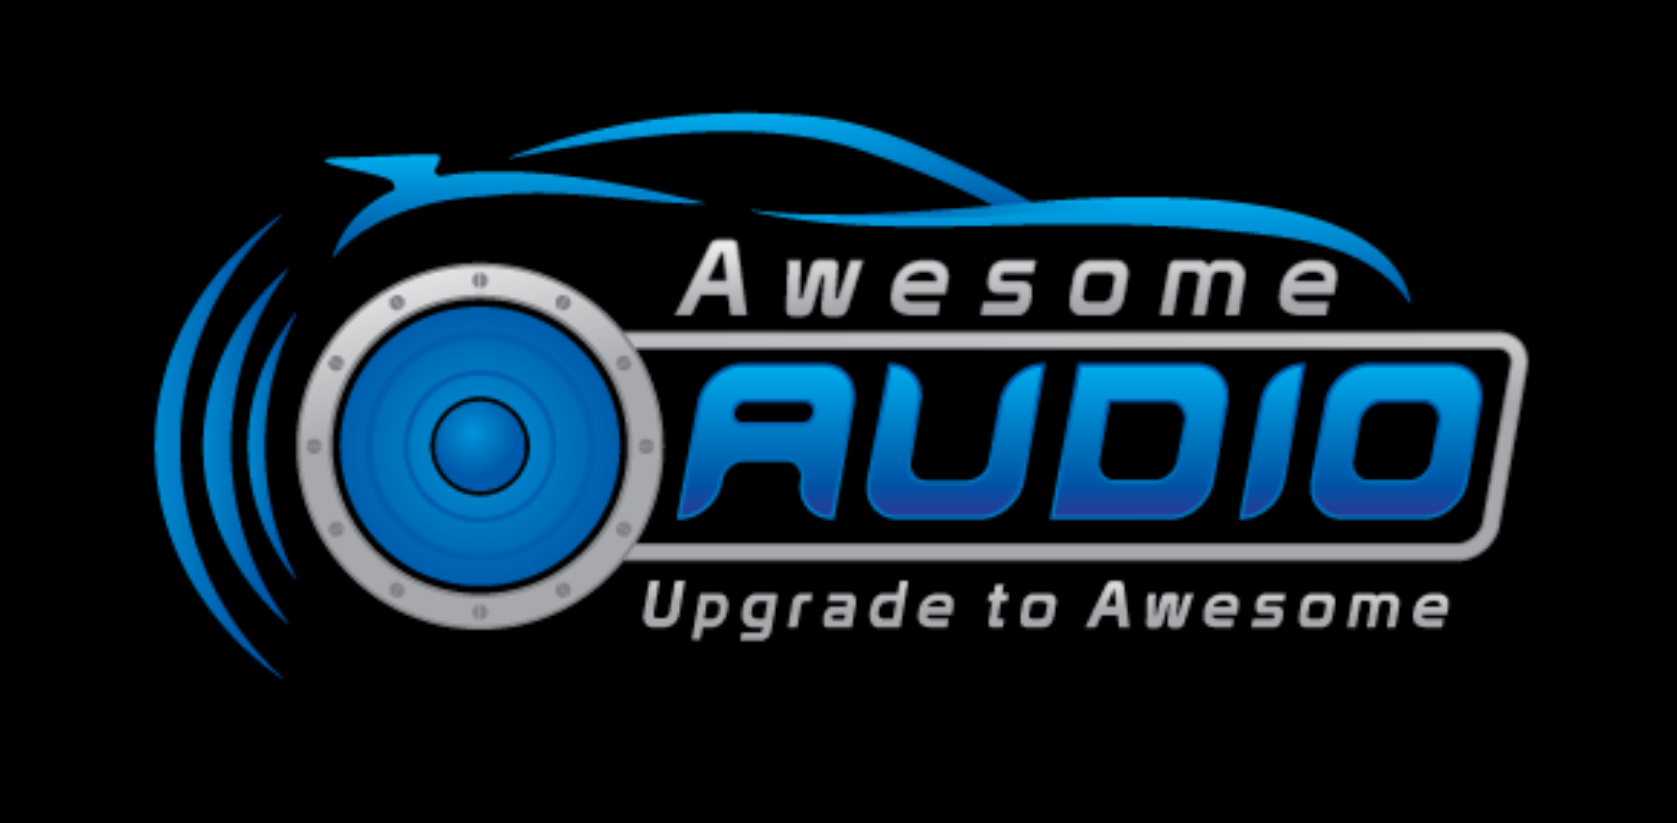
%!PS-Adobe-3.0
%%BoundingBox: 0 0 1677 823
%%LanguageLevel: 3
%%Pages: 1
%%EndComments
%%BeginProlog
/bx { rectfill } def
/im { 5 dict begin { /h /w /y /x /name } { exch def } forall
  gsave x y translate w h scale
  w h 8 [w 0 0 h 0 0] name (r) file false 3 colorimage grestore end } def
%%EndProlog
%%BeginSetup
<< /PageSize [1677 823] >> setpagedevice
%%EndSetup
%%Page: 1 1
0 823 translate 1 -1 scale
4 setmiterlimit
0 setgray
0 0 1677 823 bx
(image0.raw) 153 109 1377 571 im
showpage
%%EOF
